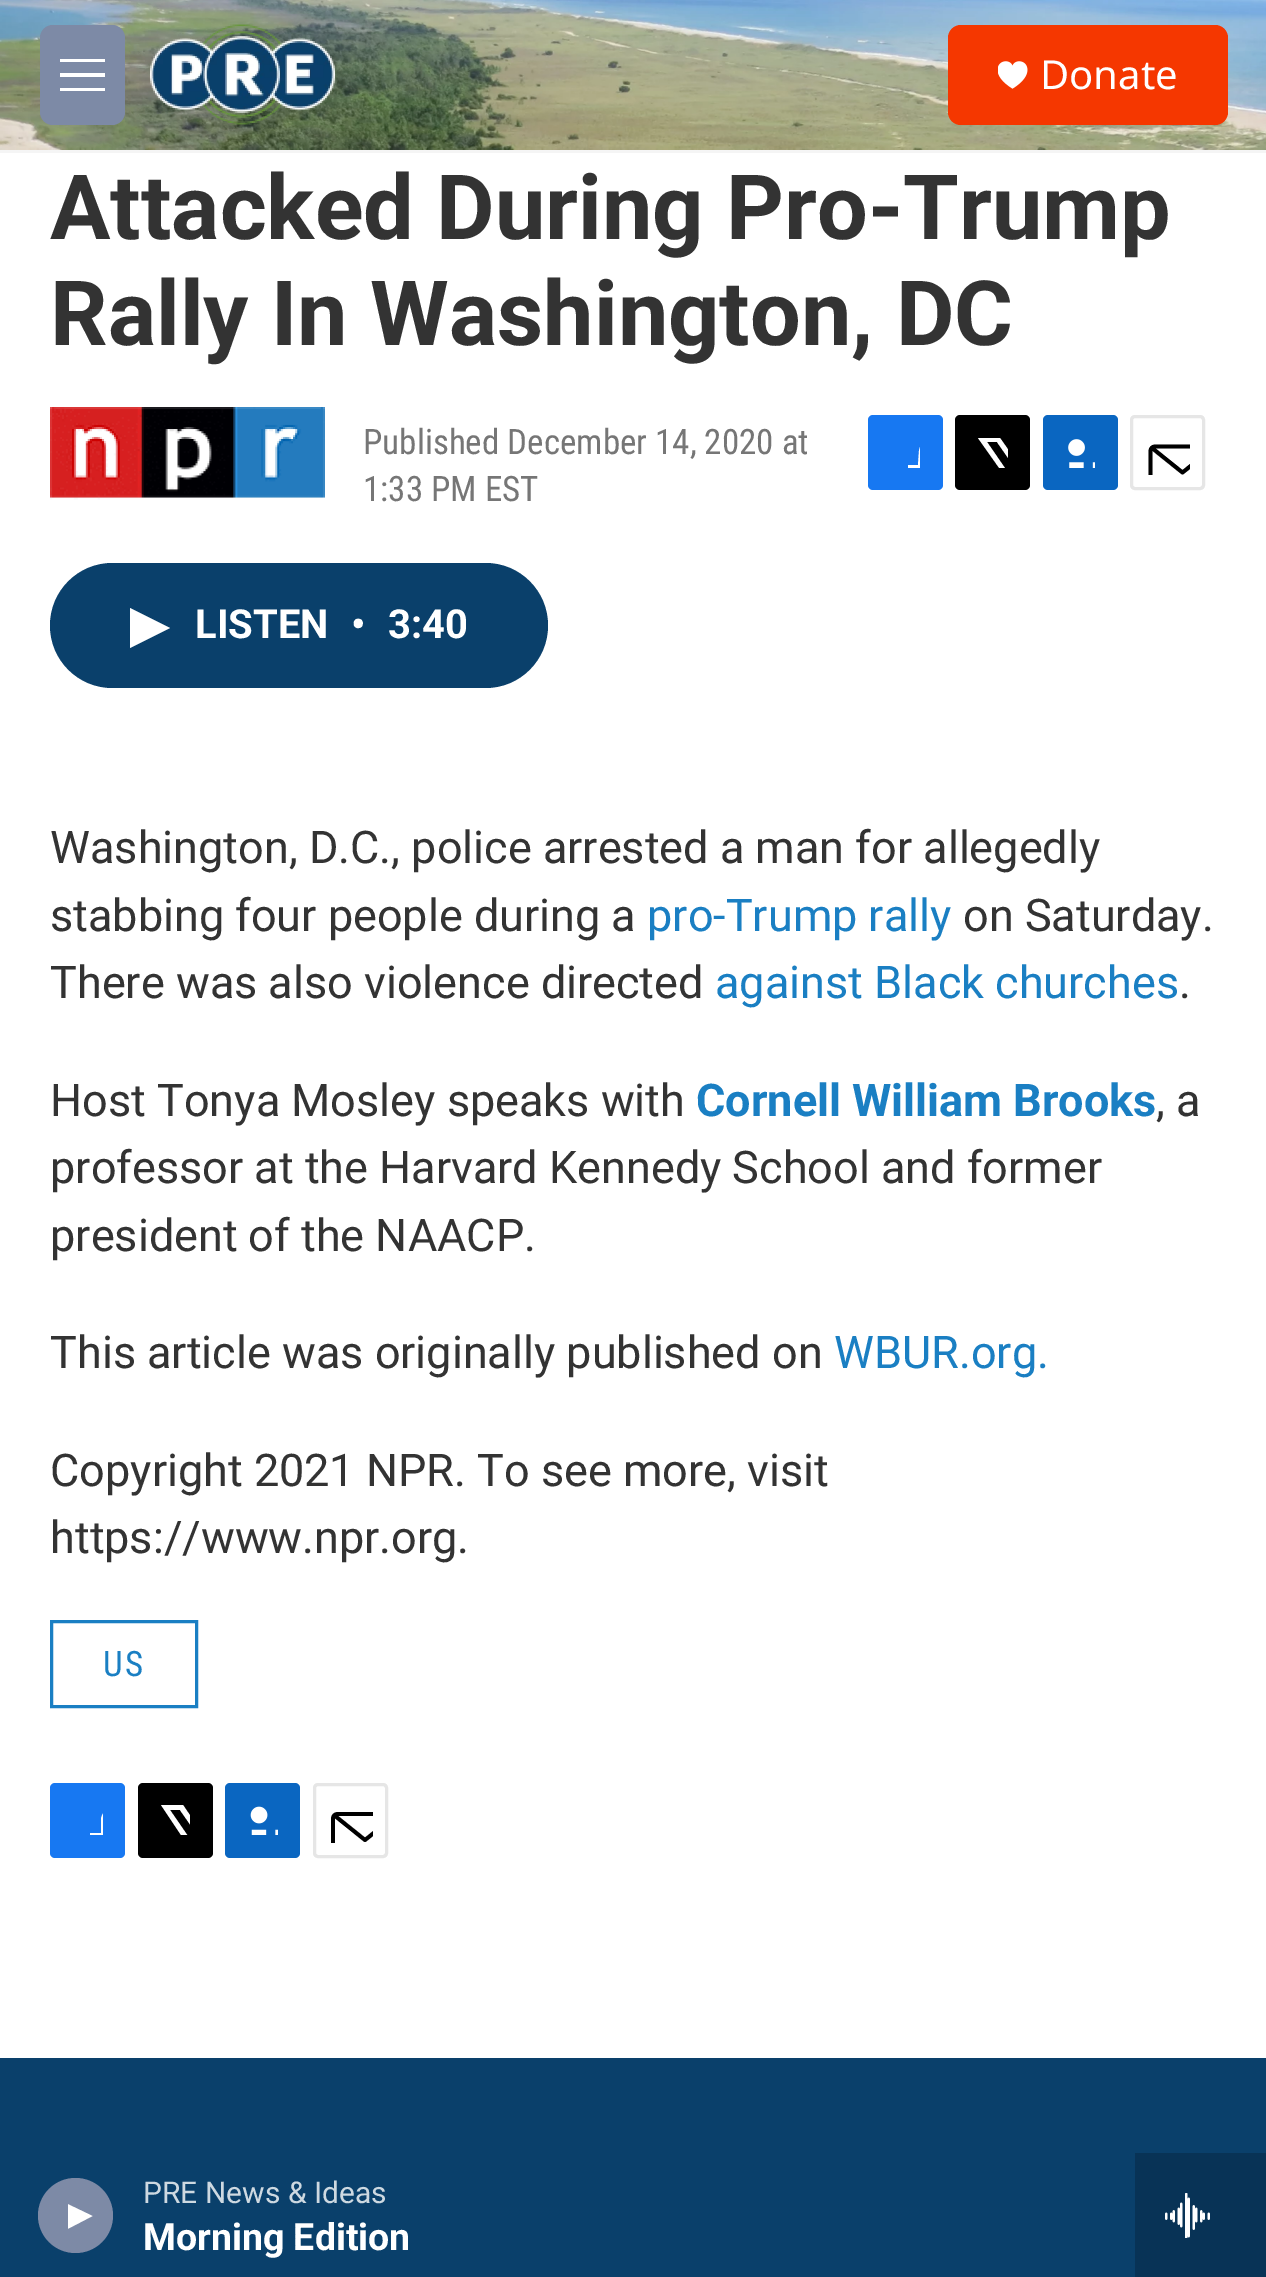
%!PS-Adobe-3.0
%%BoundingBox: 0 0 1266 2277
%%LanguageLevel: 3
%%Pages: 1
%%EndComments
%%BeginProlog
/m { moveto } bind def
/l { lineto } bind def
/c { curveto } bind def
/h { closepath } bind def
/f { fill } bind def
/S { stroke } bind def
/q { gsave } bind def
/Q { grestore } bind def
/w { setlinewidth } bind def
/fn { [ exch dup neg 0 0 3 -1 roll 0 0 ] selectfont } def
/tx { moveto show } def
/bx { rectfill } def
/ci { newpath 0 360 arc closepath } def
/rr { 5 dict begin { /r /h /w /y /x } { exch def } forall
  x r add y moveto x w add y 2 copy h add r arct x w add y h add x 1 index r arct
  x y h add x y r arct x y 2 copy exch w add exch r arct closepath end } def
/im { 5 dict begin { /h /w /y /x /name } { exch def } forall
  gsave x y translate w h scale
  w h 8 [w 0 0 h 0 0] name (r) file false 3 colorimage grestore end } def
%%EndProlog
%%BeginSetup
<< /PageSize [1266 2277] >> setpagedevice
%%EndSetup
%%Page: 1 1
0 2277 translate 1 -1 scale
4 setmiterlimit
1 setgray
0 0 1266 2277 bx
0.961 setgray
0 150 1266 3 bx
(image0.raw) 0 0 1266 150 im
0.49 0.541 0.651 setrgbcolor
40 25 85 100 13 rr f
1 setgray
60 77 m 60 73 l 105 73 l 105 77 l h 60 62 m 60 59 l 105 59 l 105 62 l h 60 91 m 60 88 l 105 88 l 105 91 l h eofill
(image1.raw) 150 24 185 101 im
0.961 0.216 0 setrgbcolor
948 25 280 100 13 rr f
(image2.raw) 998 61 30 28 im
/NotoSans-Regular 40 fn
1 setgray
(Donate) 1040 89 tx
0.039 0.251 0.42 setrgbcolor
0 2153 1135 124 bx
0.49 0.541 0.651 setrgbcolor
75.5 2215.5 37.5 ci f
q
68 2203 25 27 rectclip
1 setgray
67.5 2204 m 92.5 2216 l 67.5 2229 l h f
Q
/Roboto-Regular 30 fn
0.808 0.851 0.882 setrgbcolor
(PRE News & Ideas) 143 2203 tx
/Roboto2-Bold 37.5 fn
1 setgray
(Morning Edition) 143 2250 tx
0.031 0.2 0.337 setrgbcolor
1135 2153 131 124 bx
(image3.raw) 1165 2193 45 45 im
/Roboto-Bold 90 fn
0.2 setgray
(Attacked During Pro-Trump) 50 239 tx
(Rally In Washington, DC) 50 345 tx
(image4.raw) 50 407 275 93 im
/RobotoCondensed-Regular 35 fn
0.463 setgray
(Published December 14, 2020 at) 363 454 tx
(1:33 PM EST) 363 501 tx
0.09 0.471 0.949 setrgbcolor
868 415 75 75 5 rr f
q
890 438 30 30 rectclip
1 setgray
931 490 m 918 490 l 918 478 l 908 478 l 908 465 l 918 465 l 919 451 l 921 438 933 437 943 439 c 943 450 l 929 450 931 453 931 465 c 943 465 l 942 478 l 931 478 l h f
Q
0 setgray
955 415 75 75 5 rr f
q
978 438 30 30 rectclip
1 setgray
1022 469 m 1030 480 l 1030 483 1031 486 1029 488 c 997 442 l 987 442 l 1020 490 l 1015 490 l 1010 483 l 1004 490 l 997 490 l 1007 479 l 978 438 l 1000 438 l 1019 465 l 1030 453 l 1030 460 l h f
Q
0.039 0.4 0.757 setrgbcolor
1043 415 75 75 5 rr f
(image5.raw) 1068 439 27 29 im
0.902 setgray
3 w
1131.5 416.5 72 72 3.5 rr S
q
1145 430 45 45 rectclip
0 setgray
3.8 w
1 setlinecap
1 setlinejoin
1214.5 485 m 1214.5 487.5 1212.5 489.5 1210 489.5 c 1155 489.5 l 1152.5 489.5 1150.5 487.5 1150.5 485 c 1150.5 451 l 1150.5 448.5 1152.5 446.5 1155 446.5 c 1210 446.5 l 1212.5 446.5 1214.5 448.5 1214.5 451 c h 1213 448 m 1182.5 472.5 l 1152 448 l S
Q
0.039 0.251 0.42 setrgbcolor
50 563 498 125 62.5 rr f
1 setgray
130 608 m 170 628 l 130 648 l h f
/Roboto2-Bold 40 fn
(LISTEN) 195 638 tx
(•) 351 638 tx
(3:40) 388 638 tx
/Roboto-Regular 45 fn
0.2 setgray
(Washington, D.C., police arrested a man for allegedly) 50 863 tx
(stabbing four people during a) 50 931 tx
0.102 0.498 0.765 setrgbcolor
(pro-Trump rally) 647 931 tx
0.2 setgray
(on Saturday.) 963 931 tx
(There was also violence directed) 50 998 tx
0.102 0.498 0.765 setrgbcolor
(against Black churches) 715 998 tx
0.2 setgray
(.) 1179 998 tx
(Host Tonya Mosley speaks with) 50 1116 tx
/Roboto2-Bold 45 fn
0.102 0.498 0.765 setrgbcolor
(Cornell William Brooks) 696 1116 tx
/Roboto-Regular 45 fn
0.2 setgray
(, a) 1156 1116 tx
(professor at the Harvard Kennedy School and former) 50 1183 tx
(president of the NAACP.) 50 1251 tx
(This article was originally published on) 50 1368 tx
0.102 0.498 0.765 setrgbcolor
(WBUR.org.) 834 1368 tx
0.2 setgray
(Copyright 2021 NPR. To see more, visit) 50 1486 tx
(https://www.npr.org.) 50 1553 tx
0.102 0.498 0.765 setrgbcolor
51.5 1621.5 145 85 rectstroke
/RobotoCondensed-Regular 35 fn
103 1676 m 2 0 (US) ashow
0.09 0.471 0.949 setrgbcolor
50 1783 75 75 5 rr f
q
73 1805 30 30 rectclip
1 setgray
114 1858 m 101 1858 l 101 1845 l 90 1845 l 90 1833 l 101 1833 l 101 1819 l 103 1807 114 1805 125 1807 c 125 1818 l 111 1818 114 1822 114 1833 c 125 1833 l 125 1839 l 124 1845 l 114 1845 l h f
Q
0 setgray
138 1783 75 75 5 rr f
q
160 1805 30 30 rectclip
1 setgray
204 1837 m 213 1850 l 213 1852 213 1854 212 1856 c 180 1810 l 170 1810 l 203 1858 l 197 1858 l 192 1851 l 186 1858 l 180 1858 l 189 1847 l 161 1805 l 183 1805 l 202 1833 l 213 1820 l 213 1827 l h f
Q
0.039 0.4 0.757 setrgbcolor
225 1783 75 75 5 rr f
(image6.raw) 250 1806 28 29 im
0.902 setgray
314.5 1784.5 72 72 3.5 rr S
q
328 1798 45 45 rectclip
0 setgray
3.8 w
1 setlinecap
1 setlinejoin
397 1852.5 m 397 1855 395 1857 392.5 1857 c 337.5 1857 l 335 1857 333 1855 333 1852.5 c 333 1818.5 l 333 1816 335 1814 337.5 1814 c 392.5 1814 l 395 1814 397 1816 397 1818.5 c h 395.5 1815.5 m 365 1840 l 334.5 1815.5 l S
Q
0.039 0.251 0.42 setrgbcolor
0 2058 1266 95 bx
showpage
%%EOF
